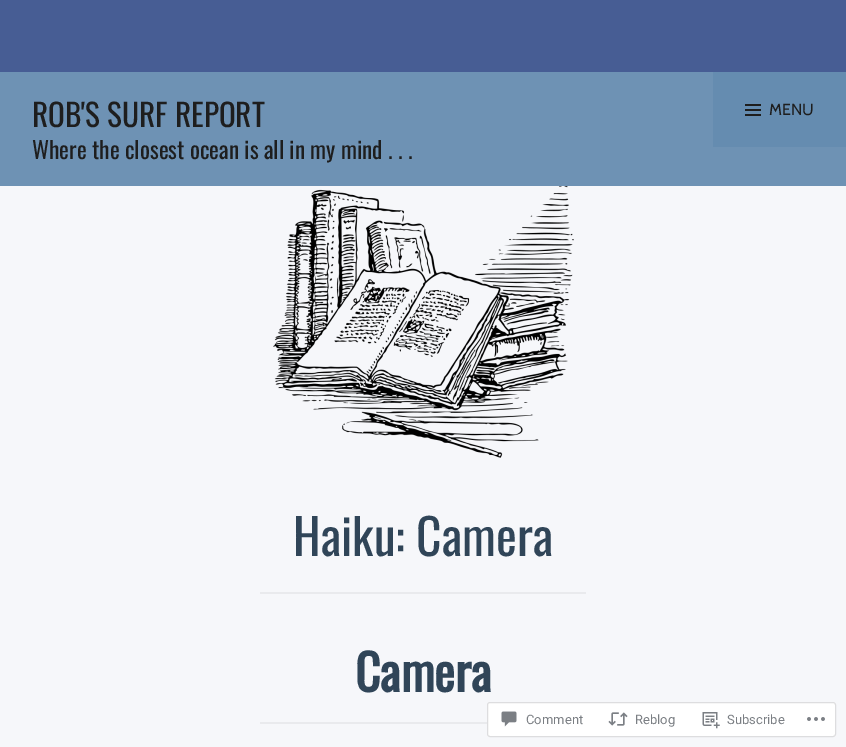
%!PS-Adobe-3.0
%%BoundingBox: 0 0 846 747
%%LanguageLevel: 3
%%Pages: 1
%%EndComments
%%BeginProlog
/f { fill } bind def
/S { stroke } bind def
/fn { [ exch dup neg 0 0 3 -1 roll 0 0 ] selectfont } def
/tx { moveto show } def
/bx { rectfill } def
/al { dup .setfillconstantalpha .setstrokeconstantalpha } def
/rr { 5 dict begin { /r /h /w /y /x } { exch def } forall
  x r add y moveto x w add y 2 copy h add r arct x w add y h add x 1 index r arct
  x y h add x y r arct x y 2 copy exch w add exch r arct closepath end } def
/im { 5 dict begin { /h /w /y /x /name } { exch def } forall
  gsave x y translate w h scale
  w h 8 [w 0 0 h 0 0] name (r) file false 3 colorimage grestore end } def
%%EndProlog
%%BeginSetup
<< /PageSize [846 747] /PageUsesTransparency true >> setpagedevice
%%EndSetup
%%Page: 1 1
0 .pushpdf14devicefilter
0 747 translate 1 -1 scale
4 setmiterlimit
0.278 0.365 0.58 setrgbcolor
0 0 846 747 bx
0.431 0.573 0.706 setrgbcolor
0 72 846 114 bx
/Oswald-Regular 31.25 fn
0.118 setgray
(ROB'S SURF REPORT) 32 127 tx
/Oswald-Regular 23.4 fn
(Where the closest ocean is all in my mind . . .) 32 159 tx
0.396 0.549 0.69 setrgbcolor
713 72 133 75 bx
(image0.raw) 745 104 16 12 im
/Cabin-Regular 16 fn
0.118 setgray
(MENU) 769 115 tx
0.965 0.969 0.98 setrgbcolor
0 186 846 561 bx
(image1.raw) 273 186 301 272 im
/Oswald-Regular 49.5 fn
0.188 0.271 0.345 setrgbcolor
(Haiku: Camera) 293 556 tx
0.914 0.918 0.929 setrgbcolor
260 592 326 2 bx
/Oswald-Bold 49.5 fn
0.188 0.271 0.345 setrgbcolor
(Camera) 355 692 tx
0.914 0.918 0.929 setrgbcolor
260 722 326 2 bx
0.98 al
1 setgray
487 702 349 35 3 rr f
0.863 0.863 0.871 setrgbcolor
487.5 702.5 348 34 2.5 rr S
1 al
(image2.raw) 501 711 16 16 im
/Roboto-Regular 13 fn
0.482 0.498 0.518 setrgbcolor
(Comment) 526 724 tx
(image3.raw) 608 712 20 14 im
(Reblog) 635 724 tx
(image4.raw) 702 712 18 17 im
(Subscribe) 727 724 tx
(image5.raw) 807 717 18 4 im
.poppdf14devicefilter showpage
%%EOF
